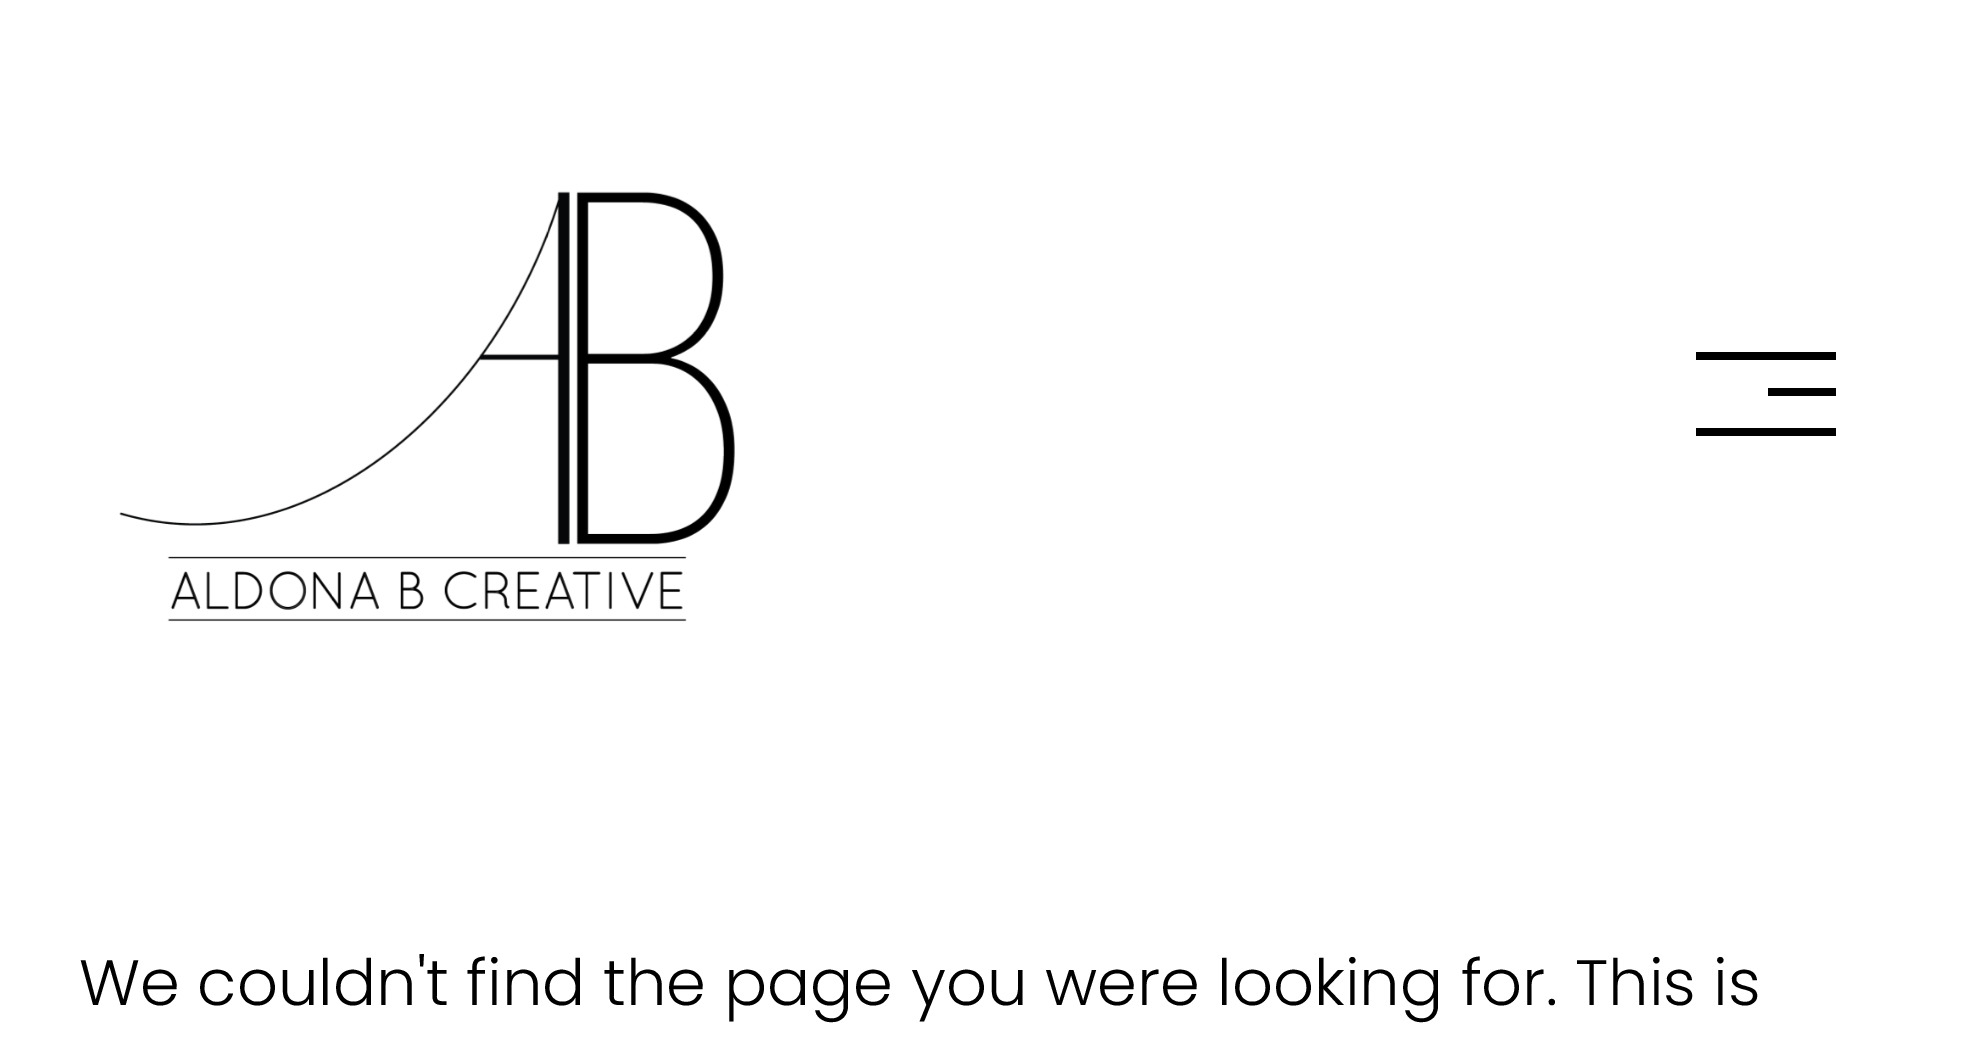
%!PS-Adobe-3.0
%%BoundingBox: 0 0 1979 1042
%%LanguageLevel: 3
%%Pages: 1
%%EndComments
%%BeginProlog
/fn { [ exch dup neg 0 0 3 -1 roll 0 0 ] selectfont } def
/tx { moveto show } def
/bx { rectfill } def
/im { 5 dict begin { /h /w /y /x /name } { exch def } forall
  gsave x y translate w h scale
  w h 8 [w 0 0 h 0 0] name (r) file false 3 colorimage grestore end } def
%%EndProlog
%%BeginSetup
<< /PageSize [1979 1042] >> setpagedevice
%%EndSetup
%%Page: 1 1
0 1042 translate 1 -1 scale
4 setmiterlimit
1 setgray
0 0 1979 1042 bx
(image0.raw) 119 191 616 431 im
0 setgray
1696 352 140 8 bx
1768 388 68 8 bx
1696 428 140 8 bx
/Poppins-Light 64 fn
(We couldn't find the page you were looking for. This is) 79 1005 tx
showpage
%%EOF
